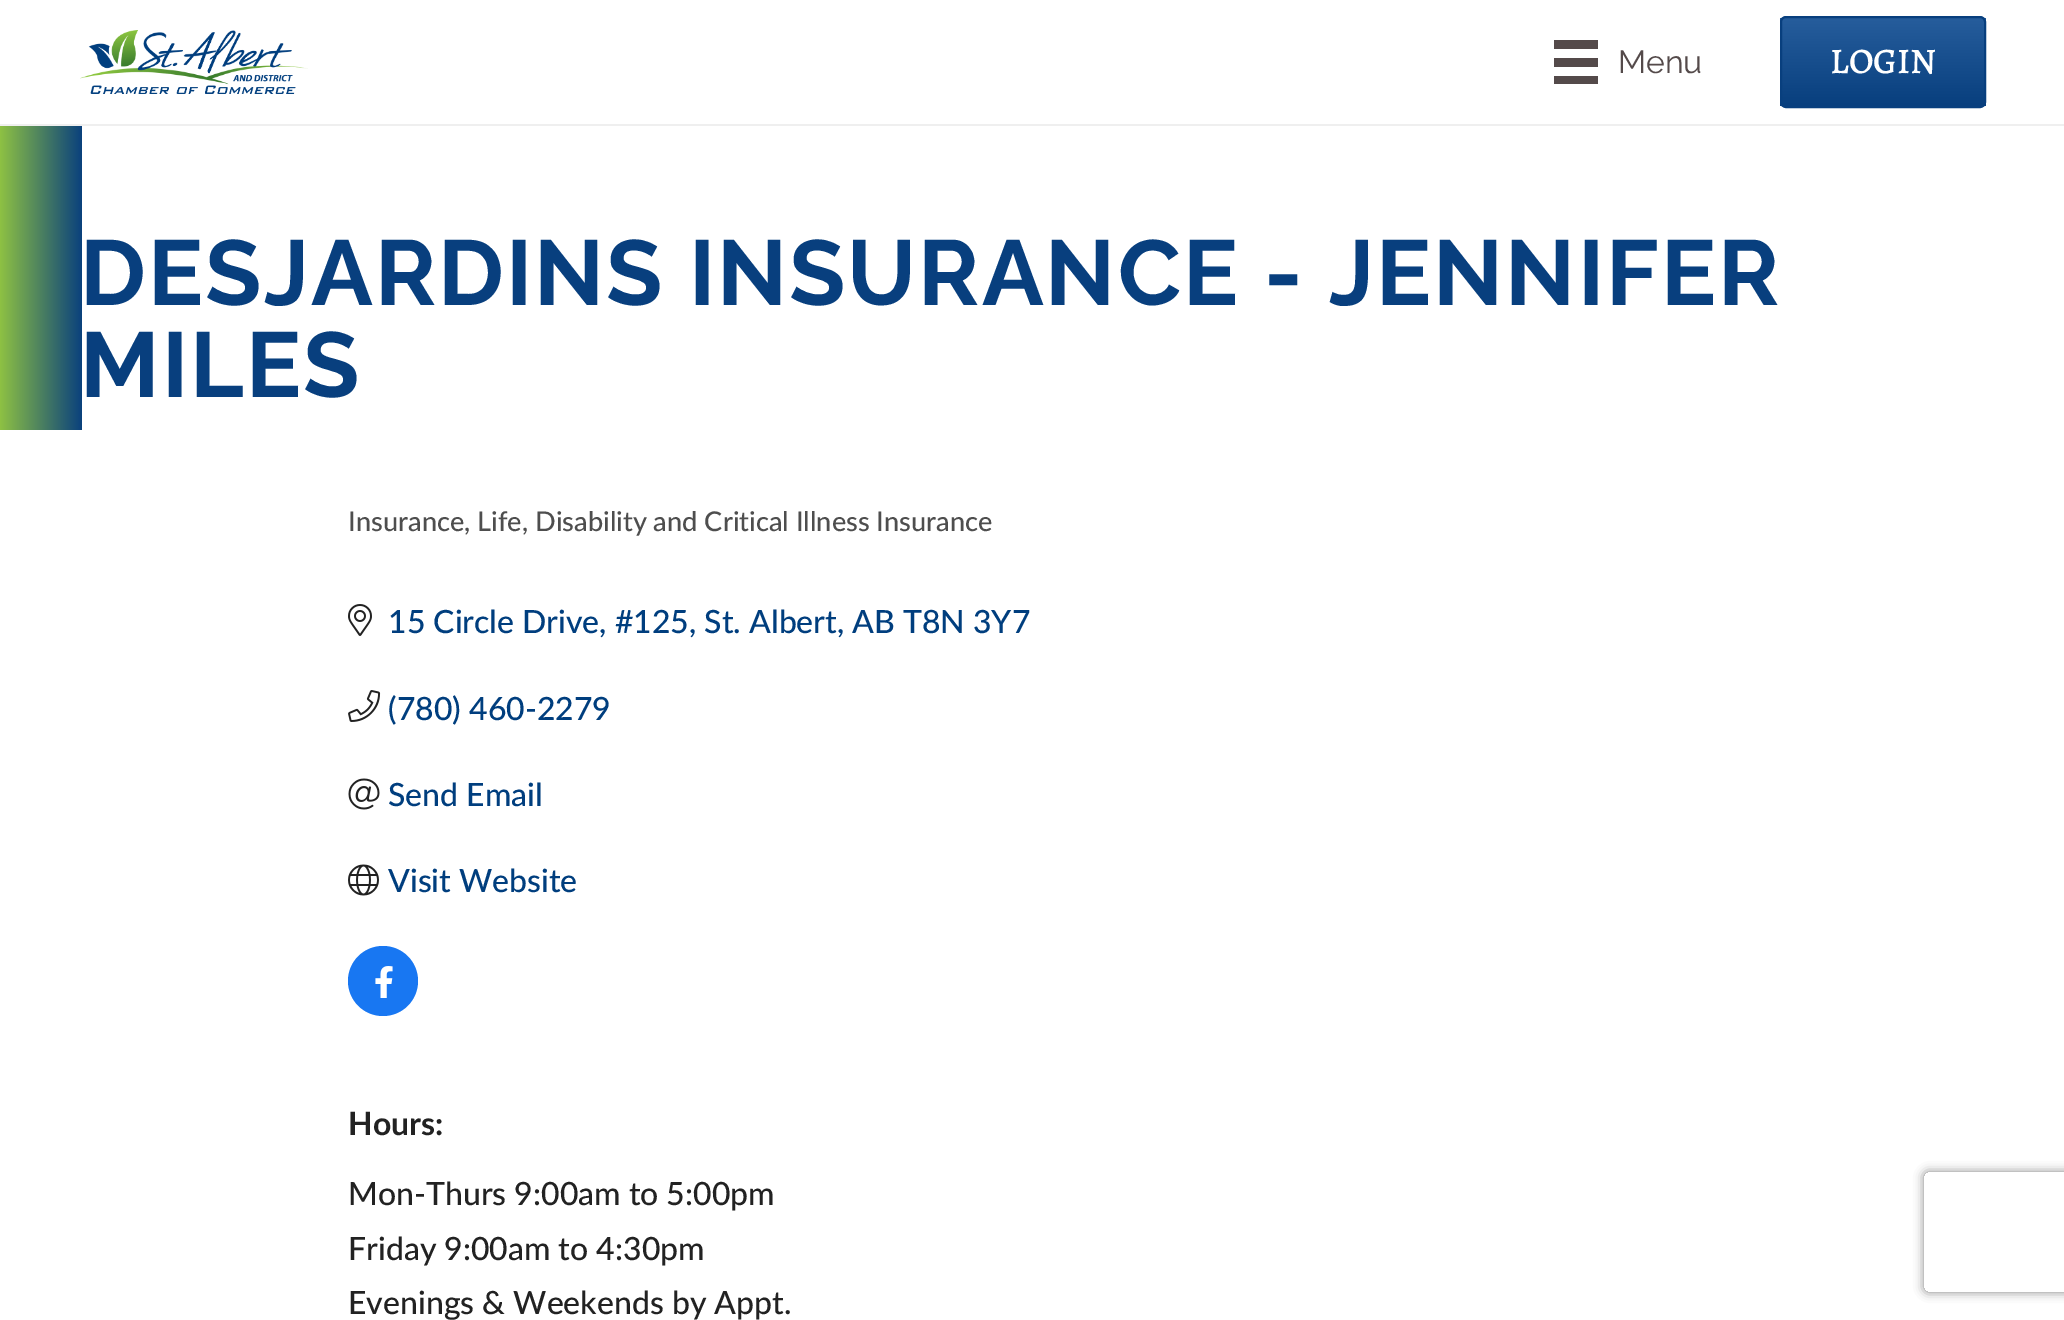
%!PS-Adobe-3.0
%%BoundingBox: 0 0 2064 1320
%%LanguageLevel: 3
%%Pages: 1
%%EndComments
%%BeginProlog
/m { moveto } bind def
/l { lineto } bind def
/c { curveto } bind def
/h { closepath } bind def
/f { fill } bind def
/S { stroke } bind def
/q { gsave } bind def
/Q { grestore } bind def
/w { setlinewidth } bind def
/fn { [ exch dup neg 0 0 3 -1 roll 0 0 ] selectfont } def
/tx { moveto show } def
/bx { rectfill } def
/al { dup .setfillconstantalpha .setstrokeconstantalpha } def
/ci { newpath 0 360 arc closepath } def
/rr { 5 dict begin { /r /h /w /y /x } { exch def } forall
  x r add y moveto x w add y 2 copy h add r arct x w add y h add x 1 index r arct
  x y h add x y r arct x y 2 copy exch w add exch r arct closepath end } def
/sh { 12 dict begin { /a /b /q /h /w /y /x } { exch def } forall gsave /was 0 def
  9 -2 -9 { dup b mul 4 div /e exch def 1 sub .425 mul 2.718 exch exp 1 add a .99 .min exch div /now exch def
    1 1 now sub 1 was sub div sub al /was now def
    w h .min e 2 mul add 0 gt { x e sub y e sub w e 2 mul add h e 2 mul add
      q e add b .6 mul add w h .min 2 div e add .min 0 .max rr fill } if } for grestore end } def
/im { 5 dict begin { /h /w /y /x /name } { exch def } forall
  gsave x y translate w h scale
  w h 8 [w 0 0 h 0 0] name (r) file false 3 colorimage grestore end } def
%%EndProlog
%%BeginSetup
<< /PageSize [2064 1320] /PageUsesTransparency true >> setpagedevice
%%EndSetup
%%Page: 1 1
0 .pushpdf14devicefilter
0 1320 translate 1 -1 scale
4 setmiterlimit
1 setgray
0 0 2064 1320 bx
0.937 setgray
0 124 2064 2 bx
(image0.raw) 80 30 228 64 im
0.329 0.29 0.29 setrgbcolor
1554 40 44 9 bx
1554 58 44 9 bx
1554 76 44 8 bx
/Raleway-Regular 32 fn
(Menu) 1618 73 tx
q
1780 16 206 92 6 rr clip newpath
q 1780 18 m 1986 18 l 1986 106 l 1780 106 l h clip newpath
<< /ShadingType 2 /ColorSpace /DeviceRGB /Coords [1883 18 1883 106] /Extend [true true] /Function << /FunctionType 2 /Domain [0 1] /C0 [0.149 0.365 0.612] /C1 [0.031 0.247 0.494] /N 1 >> >> shfill Q
Q
0.031 0.247 0.494 setrgbcolor
2 w
1781 17 204 90 5 rr S
/Alegreya-Medium 36 fn
1 setgray
(LOGIN) 1830 73 tx
q 0 126 m 82 126 l 82 430 l 0 430 l h clip newpath
<< /ShadingType 2 /ColorSpace /DeviceRGB /Coords [83 430 0 430] /Extend [true true] /Function << /FunctionType 2 /Domain [0 1] /C0 [0.031 0.247 0.494] /C1 [0.557 0.757 0.263] /N 1 >> >> shfill Q
/Raleway-Bold 92 fn
0.031 0.247 0.494 setrgbcolor
80 305 m 2 0 (DESJARDINS INSURANCE - JENNIFER) ashow
80 397 m 2 0 (MILES) ashow
/Lato-Medium 27.2 fn
0.306 setgray
(Insurance, Life, Disability and Critical Illness Insurance) 348 531 tx
(image1.raw) 348 604 24 32 im
/Lato-Medium 32 fn
0 0.243 0.494 setrgbcolor
(15 Circle Drive, #125, St. Albert, AB T8N 3Y7) 388 633 tx
(image2.raw) 348 690 33 32 im
(\(780\) 460-2279) 388 720 tx
(image3.raw) 348 778 32 32 im
(Send Email) 388 806 tx
(image4.raw) 348 864 31 32 im
(Visit Website) 388 892 tx
0.094 0.467 0.949 setrgbcolor
383 981 35 ci f
(image5.raw) 375 966 18 32 im
/Lato-Bold 32 fn
0.133 setgray
(Hours:) 348 1135 tx
/Lato-Medium 32 fn
(Mon-Thurs 9:00am to 5:00pm) 348 1205 tx
(Friday 9:00am to 4:30pm) 348 1260 tx
(Evenings & Weekends by Appt.) 348 1314 tx
q
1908 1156 m 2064 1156 l 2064 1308 l 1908 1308 l h 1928 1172 m 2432 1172 l 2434 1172 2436 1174 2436 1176 c 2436 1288 l 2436 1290 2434 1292 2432 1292 c 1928 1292 l 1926 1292 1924 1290 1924 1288 c 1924 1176 l 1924 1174 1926 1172 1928 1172 c h eoclip newpath
0.502 setgray
1924 1172 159 120 4 5 1 sh
Q
.poppdf14devicefilter showpage
%%EOF
